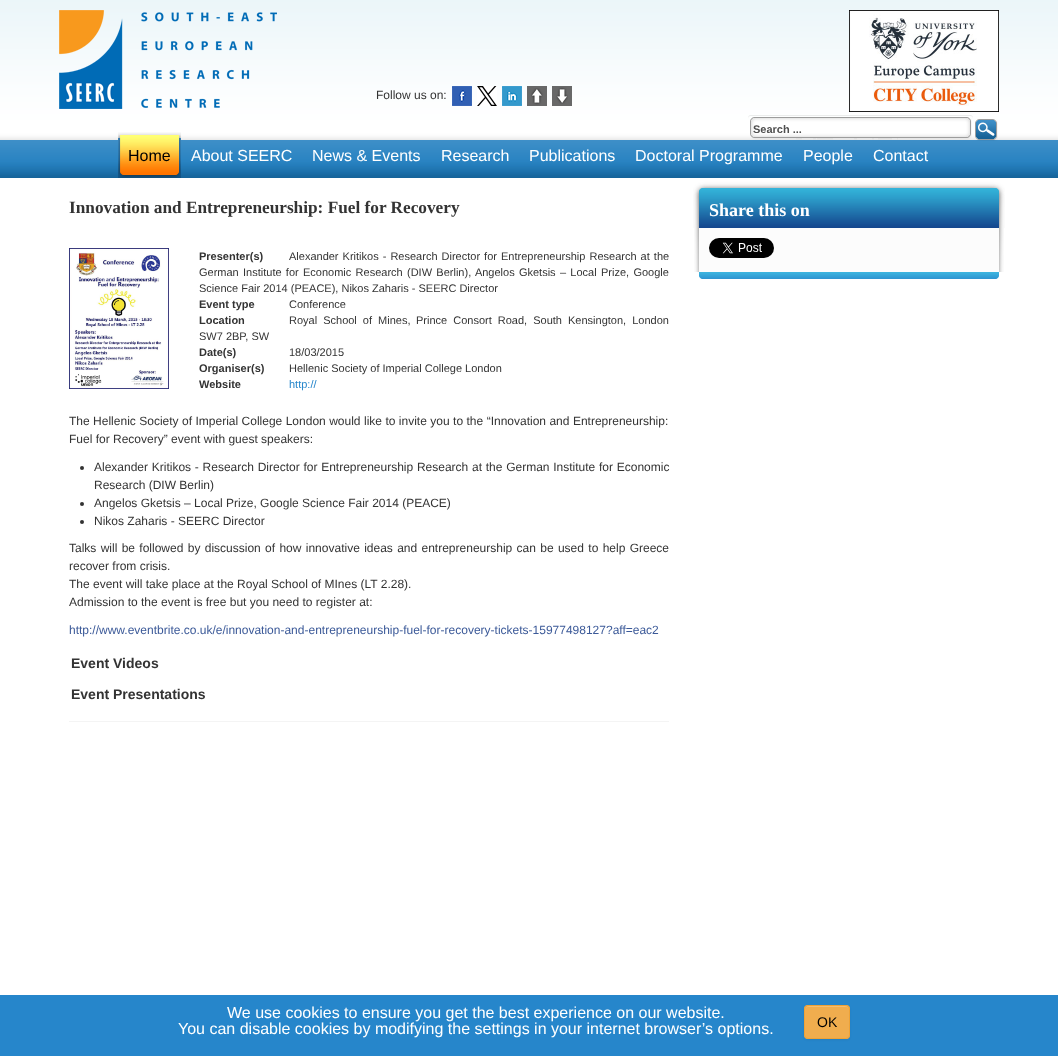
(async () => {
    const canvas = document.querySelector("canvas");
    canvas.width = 1058;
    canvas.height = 1056;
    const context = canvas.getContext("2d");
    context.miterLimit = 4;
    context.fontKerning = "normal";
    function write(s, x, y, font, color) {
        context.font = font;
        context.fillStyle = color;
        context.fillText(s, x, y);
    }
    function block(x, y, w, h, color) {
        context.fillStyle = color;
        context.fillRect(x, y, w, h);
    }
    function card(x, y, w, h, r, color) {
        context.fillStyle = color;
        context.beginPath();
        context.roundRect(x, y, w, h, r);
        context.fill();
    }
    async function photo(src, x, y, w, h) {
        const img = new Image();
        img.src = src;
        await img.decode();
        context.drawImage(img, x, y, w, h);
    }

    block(0, 0, 1058, 1056, "rgb(255, 255, 255)");
    await photo("media/1.png", 0, 0, 1058, 178);
    await photo("media/2.png", 59, 10, 218, 99);
    write("Follow us on:", 376, 99, "12px Liberation Sans", "rgb(51, 51, 51)");
    await photo("media/3.png", 452, 86, 20, 20);
    await photo("media/4.png", 477, 86, 20, 20);
    await photo("media/5.png", 502, 86, 20, 20);
    block(527, 86, 20, 20, "rgb(104, 104, 104)");
    await photo("media/6.png", 531, 88, 12, 17);
    block(552, 86, 20, 20, "rgb(104, 104, 104)");
    await photo("media/7.png", 556, 87, 12, 17);
    await photo("media/8.png", 849, 10, 150, 102);
    await photo("media/9.png", 750, 117, 222, 23);
    context.fillStyle = "rgb(235, 236, 236)";
    context.beginPath();
    context.moveTo(751, 116);
    context.lineTo(970, 116);
    context.bezierCurveTo(972, 116, 973, 117, 973, 119);
    context.lineTo(973, 118);
    context.bezierCurveTo(973, 116, 972, 115, 970, 115);
    context.lineTo(751, 115);
    context.bezierCurveTo(749, 115, 748, 116, 748, 118);
    context.lineTo(748, 119);
    context.bezierCurveTo(748, 117, 749, 116, 751, 116);
    context.closePath();
    context.fill();
    write("Search ...", 753, 133, "bold 11px Liberation Sans", "rgb(79, 79, 79)");
    await photo("media/10.png", 975, 119, 23, 22);
    await photo("media/11.png", 118, 132, 63, 46);
    await photo("media/12.png", 175, 134, 6, 44);
    write("Home", 128, 161, "16px Liberation Sans", "rgb(0, 0, 0)");
    write("About SEERC", 191, 161, "16px Liberation Sans", "rgb(255, 255, 255)");
    write("News & Events", 312, 161, "16px Liberation Sans", "rgb(255, 255, 255)");
    write("Research", 441, 161, "16px Liberation Sans", "rgb(255, 255, 255)");
    write("Publications", 529, 161, "16px Liberation Sans", "rgb(255, 255, 255)");
    write("Doctoral Programme", 635, 161, "16px Liberation Sans", "rgb(255, 255, 255)");
    write("People", 803, 161, "16px Liberation Sans", "rgb(255, 255, 255)");
    write("Contact", 873, 161, "16px Liberation Sans", "rgb(255, 255, 255)");
    write("Innovation and Entrepreneurship: Fuel for Recovery", 69, 213, "bold 17.25px Liberation Serif", "rgb(51, 51, 51)");
    block(69, 721, 600, 1, "rgb(244, 244, 244)");
    await photo("media/13.png", 69, 248, 100, 141);
    write("Presenter(s)", 199, 260, "bold 11px Liberation Sans", "rgb(51, 51, 51)");
    context.wordSpacing = "1px";
    write("Alexander Kritikos - Research Director for Entrepreneurship Research at the", 289, 260, "11px Liberation Sans", "rgb(51, 51, 51)");
    context.wordSpacing = "1.25px";
    write("German Institute for Economic Research (DIW Berlin), Angelos Gketsis – Local Prize, Google", 199, 276, "11px Liberation Sans", "rgb(51, 51, 51)");
    context.wordSpacing = "0px";
    write("Science Fair 2014 (PEACE), Nikos Zaharis - SEERC Director", 199, 292, "11px Liberation Sans", "rgb(51, 51, 51)");
    write("Event type", 199, 308, "bold 11px Liberation Sans", "rgb(51, 51, 51)");
    write("Conference", 289, 308, "11px Liberation Sans", "rgb(51, 51, 51)");
    write("Location", 199, 324, "bold 11px Liberation Sans", "rgb(51, 51, 51)");
    context.wordSpacing = "3px";
    write("Royal School of Mines,", 289, 324, "11px Liberation Sans", "rgb(51, 51, 51)");
    write("Prince Consort Road, South Kensington, London", 416, 324, "11px Liberation Sans", "rgb(51, 51, 51)");
    context.wordSpacing = "0px";
    write("SW7 2BP, SW", 199, 340, "11px Liberation Sans", "rgb(51, 51, 51)");
    write("Date(s)", 199, 356, "bold 11px Liberation Sans", "rgb(51, 51, 51)");
    write("18/03/2015", 289, 356, "11px Liberation Sans", "rgb(51, 51, 51)");
    write("Organiser(s)", 199, 372, "bold 11px Liberation Sans", "rgb(51, 51, 51)");
    write("Hellenic Society of Imperial College London", 289, 372, "11px Liberation Sans", "rgb(51, 51, 51)");
    write("Website", 199, 388, "bold 11px Liberation Sans", "rgb(51, 51, 51)");
    write("http://", 289, 388, "11px Liberation Sans", "rgb(38, 134, 203)");
    context.wordSpacing = "0.1px";
    write("The Hellenic Society of Imperial College London would like to invite you to the “Innovation and Entrepreneurship:", 69, 425, "12px Liberation Sans", "rgb(51, 51, 51)");
    context.wordSpacing = "0px";
    write("Fuel for Recovery” event with guest speakers:", 69, 443, "12px Liberation Sans", "rgb(51, 51, 51)");
    context.beginPath();
    context.arc(82, 468, 2, 0, Math.PI * 2);
    context.fill();
    context.wordSpacing = "0.4px";
    write("Alexander Kritikos - Research Director for Entrepreneurship Research at the German Institute for Economic", 94, 471, "12px Liberation Sans", "rgb(51, 51, 51)");
    context.wordSpacing = "0px";
    write("Research (DIW Berlin)", 94, 489, "12px Liberation Sans", "rgb(51, 51, 51)");
    context.beginPath();
    context.arc(82, 504, 2, 0, Math.PI * 2);
    context.fill();
    write("Angelos Gketsis – Local Prize, Google Science Fair 2014 (PEACE)", 94, 507, "12px Liberation Sans", "rgb(51, 51, 51)");
    context.beginPath();
    context.arc(82, 522, 2, 0, Math.PI * 2);
    context.fill();
    write("Nikos Zaharis - SEERC Director", 94, 525, "12px Liberation Sans", "rgb(51, 51, 51)");
    context.wordSpacing = "1px";
    write("Talks will be followed by discussion of how innovative ideas and entrepreneurship can be used to help Greece", 69, 552, "12px Liberation Sans", "rgb(51, 51, 51)");
    context.wordSpacing = "0px";
    write("recover from crisis.", 69, 570, "12px Liberation Sans", "rgb(51, 51, 51)");
    write("The event will take place at the Royal School of MInes (LT 2.28).", 69, 588, "12px Liberation Sans", "rgb(51, 51, 51)");
    write("Admission to the event is free but you need to register at:", 69, 606, "12px Liberation Sans", "rgb(51, 51, 51)");
    write("http://www.eventbrite.co.uk/e/innovation-and-entrepreneurship-fuel-for-recovery-tickets-15977498127?aff=eac2", 69, 634, "12px Liberation Sans", "rgb(59, 89, 152)");
    write("Event Videos", 71, 668, "bold 14px Liberation Sans", "rgb(51, 51, 51)");
    write("Event Presentations", 71, 699, "bold 14px Liberation Sans", "rgb(51, 51, 51)");
    await photo("media/14.png", 693, 178, 312, 50);
    write("Share this on", 709, 216, "bold 18px Liberation Serif", "rgb(255, 255, 255)");
    await photo("media/15.png", 694, 228, 310, 44);
    await photo("media/16.png", 709, 238, 65, 20);
    await photo("media/17.png", 697, 272, 304, 7);
    block(0, 995, 1058, 61, "rgb(38, 134, 203)");
    write("We use cookies to ensure you get the best experience on our website.", 227, 1018, "16px Liberation Sans", "rgb(255, 255, 255)");
    write("You can disable cookies by modifying the settings in your internet browser’s options.", 178, 1034, "16px Liberation Sans", "rgb(255, 255, 255)");
    context.fillStyle = "rgba(0, 0, 0, 0.05)";
    context.filter = "blur(1px)";
    context.beginPath();
    context.roundRect(804, 1006, 46, 34, 4);
    context.fill();
    context.filter = "none";
    card(804, 1005, 46, 34, 4, "rgb(240, 173, 78)");
    context.fillStyle = "rgb(243, 189, 113)";
    context.beginPath();
    context.moveTo(808, 1007);
    context.lineTo(846, 1007);
    context.bezierCurveTo(848, 1007, 849, 1008, 849, 1010);
    context.bezierCurveTo(849, 1005, 844, 1006, 840, 1006);
    context.lineTo(814, 1006);
    context.bezierCurveTo(810, 1006, 805, 1005, 805, 1010);
    context.bezierCurveTo(805, 1008, 806, 1007, 808, 1007);
    context.closePath();
    context.fill();
    context.beginPath();
    context.roundRect(804.5, 1005.5, 45, 33, 3.5);
    context.strokeStyle = "rgb(238, 162, 54)";
    context.stroke();
    write("OK", 817, 1027, "14px Liberation Sans", "rgb(0, 0, 0)");
})();
